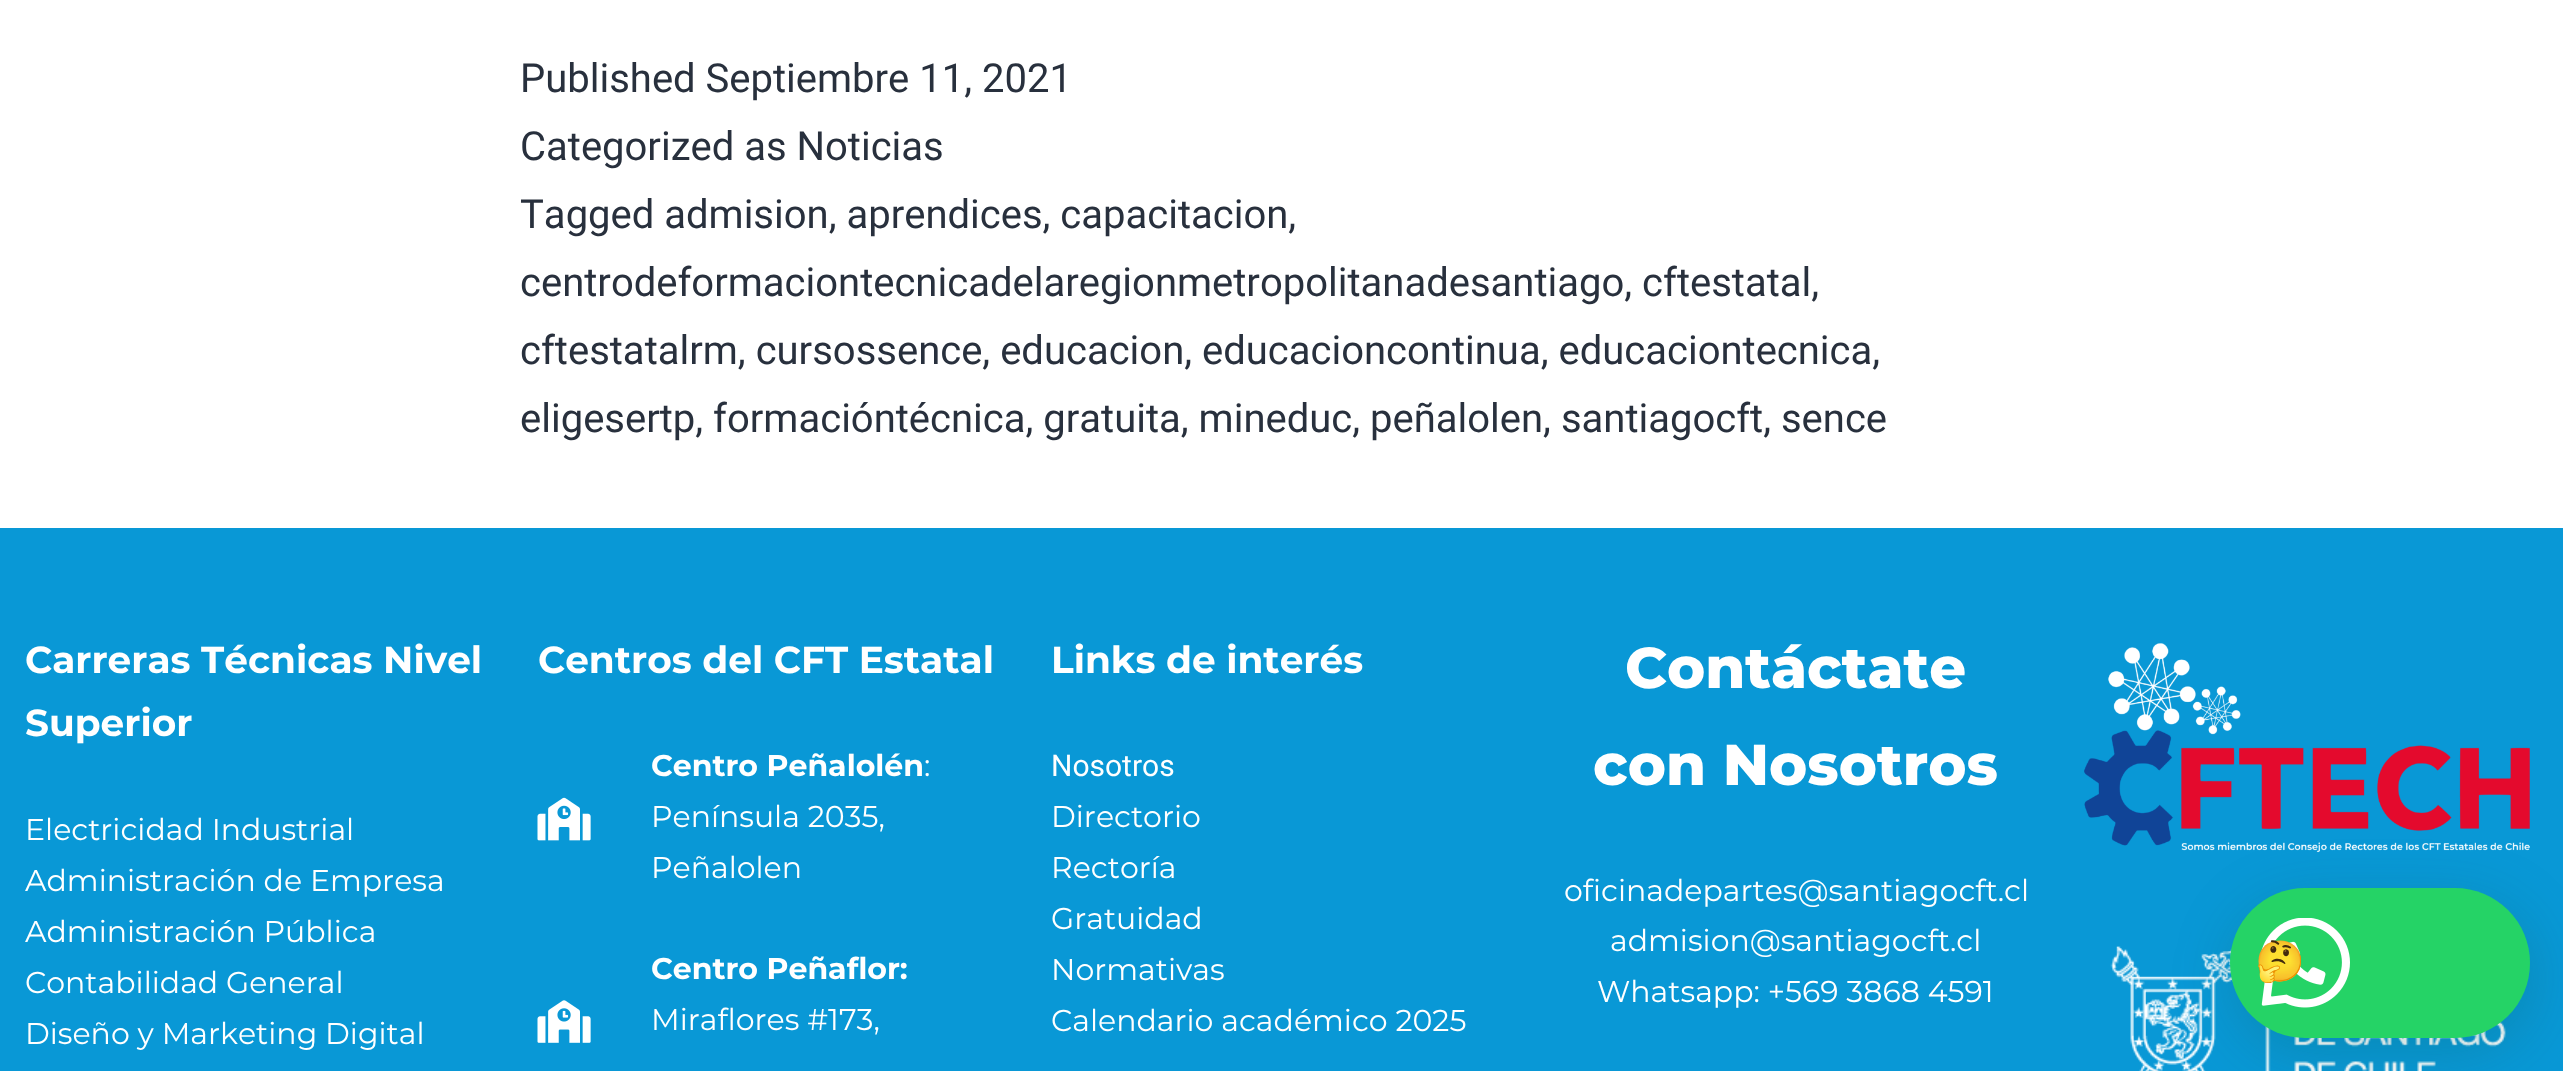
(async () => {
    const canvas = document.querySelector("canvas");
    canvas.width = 2563;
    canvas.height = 1071;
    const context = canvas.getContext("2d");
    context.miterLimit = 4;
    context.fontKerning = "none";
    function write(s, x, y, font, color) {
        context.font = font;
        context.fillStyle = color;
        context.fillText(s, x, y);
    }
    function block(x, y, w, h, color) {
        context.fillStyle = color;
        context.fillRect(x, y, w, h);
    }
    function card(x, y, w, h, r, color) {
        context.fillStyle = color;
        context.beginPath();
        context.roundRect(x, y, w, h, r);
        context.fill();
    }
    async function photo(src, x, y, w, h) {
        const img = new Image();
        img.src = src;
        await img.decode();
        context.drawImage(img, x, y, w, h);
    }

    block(0, 0, 2563, 1071, "rgb(255, 255, 255)");
    write("Published Septiembre 11, 2021", 520, 92, "40px Roboto", "rgb(40, 48, 61)");
    write("Categorized as Noticias", 520, 160, "40px Roboto", "rgb(40, 48, 61)");
    write("Tagged admision, aprendices, capacitacion,", 520, 228, "40px Roboto", "rgb(40, 48, 61)");
    write("centrodeformaciontecnicadelaregionmetropolitanadesantiago, cftestatal,", 520, 296, "40px Roboto", "rgb(40, 48, 61)");
    write("cftestatalrm, cursossence, educacion, educacioncontinua, educaciontecnica,", 520, 364, "40px Roboto", "rgb(40, 48, 61)");
    write("eligesertp, formacióntécnica, gratuita, mineduc, peñalolen, santiagocft, sence", 520, 432, "40px Roboto", "rgb(40, 48, 61)");
    block(0, 528, 2563, 543, "rgb(9, 152, 214)");
    write("Carreras Técnicas Nivel", 25, 673, "bold 37.5px Montserrat", "rgb(255, 255, 255)");
    write("Superior", 25, 736, "bold 37.5px Montserrat", "rgb(255, 255, 255)");
    write("Electricidad Industrial", 25, 840, "30px Montserrat", "rgb(255, 255, 255)");
    write("Administración de Empresa", 25, 891, "30px Montserrat", "rgb(255, 255, 255)");
    write("Administración Pública", 25, 942, "30px Montserrat", "rgb(255, 255, 255)");
    write("Contabilidad General", 25, 993, "30px Montserrat", "rgb(255, 255, 255)");
    write("Diseño y Marketing Digital", 25, 1044, "30px Montserrat", "rgb(255, 255, 255)");
    write("Centros del CFT Estatal", 538, 673, "bold 37.5px Montserrat", "rgb(255, 255, 255)");
    await photo("media/1.png", 537, 797, 54, 44);
    write("Centro Peñalolén", 651, 776, "bold 30px Montserrat", "rgb(255, 255, 255)");
    write(":", 924, 776, "30px Montserrat", "rgb(255, 255, 255)");
    write("Península 2035,", 651, 827, "30px Montserrat", "rgb(255, 255, 255)");
    write("Peñalolen", 651, 878, "30px Montserrat", "rgb(255, 255, 255)");
    await photo("media/2.png", 537, 1000, 54, 43);
    write("Centro Peñaflor:", 651, 979, "bold 30px Montserrat", "rgb(255, 255, 255)");
    write("Miraflores #173,", 651, 1030, "30px Montserrat", "rgb(255, 255, 255)");
    write("Links de interés", 1051, 673, "bold 37.5px Montserrat", "rgb(255, 255, 255)");
    write("Nosotros", 1051, 776, "30px Roboto", "rgb(255, 255, 255)");
    write("Directorio", 1051, 827, "30px Montserrat", "rgb(255, 255, 255)");
    write("Rectoría", 1051, 878, "30px Montserrat", "rgb(255, 255, 255)");
    write("Gratuidad", 1051, 929, "30px Montserrat", "rgb(255, 255, 255)");
    write("Normativas", 1051, 980, "30px Montserrat", "rgb(255, 255, 255)");
    write("Calendario académico 2025", 1051, 1031, "30px Montserrat", "rgb(255, 255, 255)");
    write("Contáctate", 1625, 688, "800 57.5px Montserrat", "rgb(255, 255, 255)");
    write("con Nosotros", 1593, 785, "800 57.5px Montserrat", "rgb(255, 255, 255)");
    write("oficinadepartes@santiagocft.cl", 1564, 901, "30px Montserrat", "rgb(255, 255, 255)");
    write("admision@santiagocft.cl", 1610, 951, "30px Montserrat", "rgb(255, 255, 255)");
    write("Whatsapp: +569 3868 4591", 1597, 1002, "30px Montserrat", "rgb(255, 255, 255)");
    await photo("media/3.png", 2084, 643, 446, 210);
    await photo("media/4.png", 2110, 946, 396, 125);
    context.fillStyle = "rgba(7, 94, 84, 0.24)";
    context.filter = "blur(30px)";
    context.beginPath();
    context.roundRect(2233, 903, 300, 150, 75);
    context.fill();
    context.filter = "none";
    card(2230, 888, 300, 150, 75, "rgb(37, 211, 102)");
    await photo("media/5.png", 2260, 918, 90, 90);
    write("🤔", 2255, 975, "40px Noto Color Emoji", "rgb(114, 227, 156)");
})();
